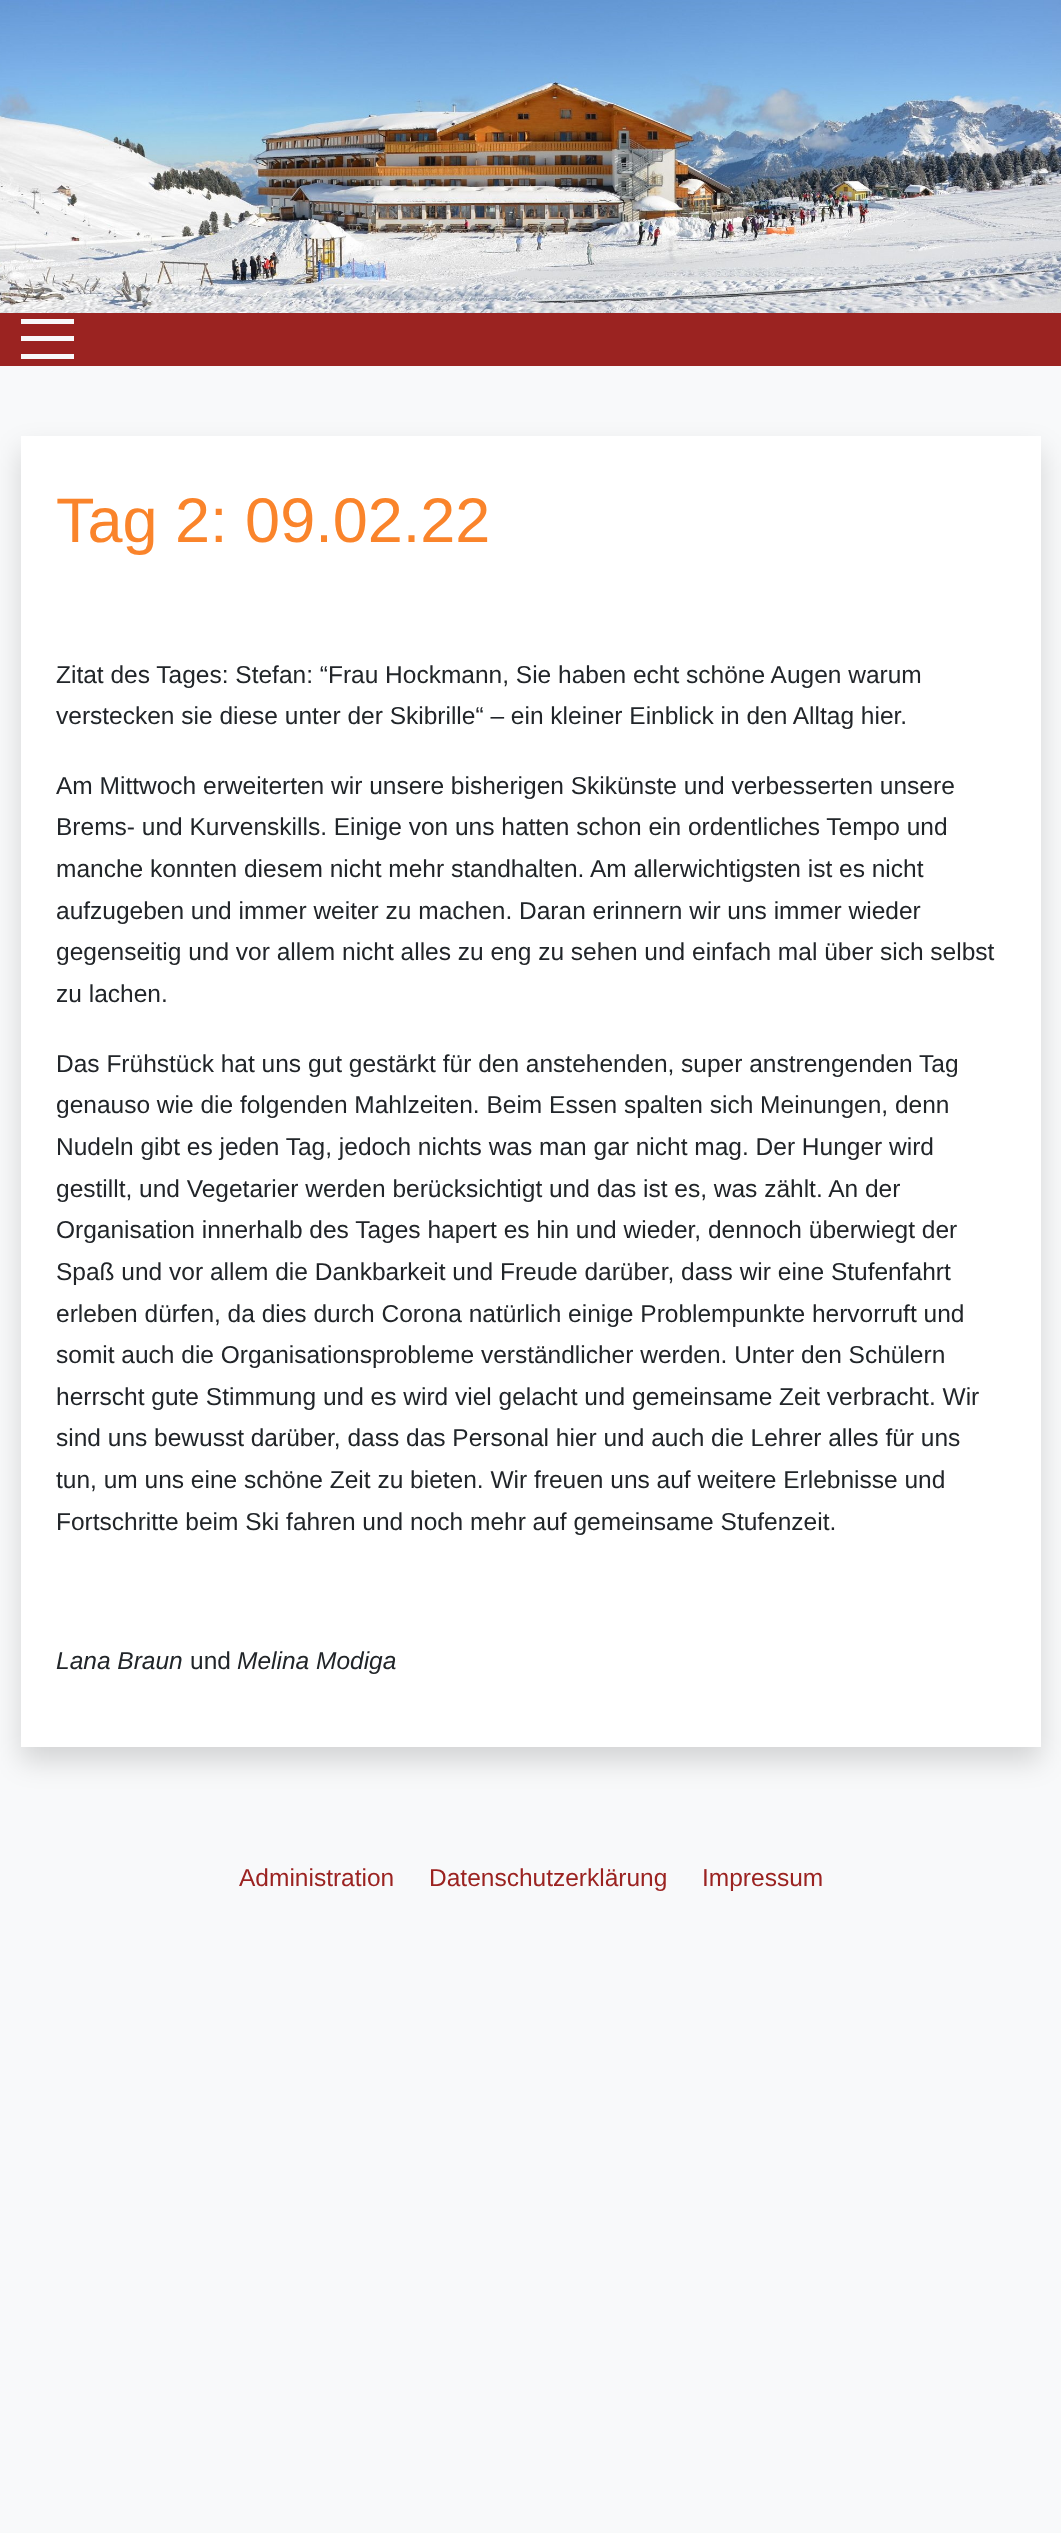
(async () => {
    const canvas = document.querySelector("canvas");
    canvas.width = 1061;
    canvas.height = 2533;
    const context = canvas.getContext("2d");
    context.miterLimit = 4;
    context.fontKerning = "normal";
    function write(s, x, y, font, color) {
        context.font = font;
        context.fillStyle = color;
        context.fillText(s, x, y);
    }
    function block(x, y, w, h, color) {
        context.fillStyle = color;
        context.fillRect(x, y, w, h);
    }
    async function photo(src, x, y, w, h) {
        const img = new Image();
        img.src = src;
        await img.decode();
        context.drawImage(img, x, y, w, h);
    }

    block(0, 0, 1061, 2533, "rgb(248, 249, 250)");
    await photo("media/1.png", 0, 0, 1061, 313);
    block(0, 313, 1061, 53, "rgb(155, 35, 33)");
    block(21, 336, 53, 5, "rgb(248, 249, 250)");
    block(21, 319, 53, 5, "rgb(248, 249, 250)");
    block(21, 354, 53, 5, "rgb(248, 249, 250)");
    context.fillStyle = "rgba(0, 0, 0, 0.15)";
    context.filter = "blur(14px)";
    context.beginPath();
    context.rect(21, 450, 1020, 1311);
    context.fill();
    context.filter = "none";
    block(21, 436, 1020, 1311, "rgb(255, 255, 255)");
    write("Tag 2: 09.02.22", 56, 542, "63px Liberation Sans", "rgb(250, 132, 43)");
    write("Zitat des Tages: Stefan: “Frau Hockmann, Sie haben echt schöne Augen warum", 56, 683, "24.5px Liberation Sans", "rgb(33, 37, 41)");
    write("verstecken sie diese unter der Skibrille“ – ein kleiner Einblick in den Alltag hier.", 56, 724, "24.5px Liberation Sans", "rgb(33, 37, 41)");
    write("Am Mittwoch erweiterten wir unsere bisherigen Skikünste und verbesserten unsere", 56, 794, "24.5px Liberation Sans", "rgb(33, 37, 41)");
    write("Brems- und Kurvenskills. Einige von uns hatten schon ein ordentliches Tempo und", 56, 835, "24.5px Liberation Sans", "rgb(33, 37, 41)");
    write("manche konnten diesem nicht mehr standhalten. Am allerwichtigsten ist es nicht", 56, 877, "24.5px Liberation Sans", "rgb(33, 37, 41)");
    write("aufzugeben und immer weiter zu machen. Daran erinnern wir uns immer wieder", 56, 919, "24.5px Liberation Sans", "rgb(33, 37, 41)");
    write("gegenseitig und vor allem nicht alles zu eng zu sehen und einfach mal über sich selbst", 56, 960, "24.5px Liberation Sans", "rgb(33, 37, 41)");
    write("zu lachen.", 56, 1002, "24.5px Liberation Sans", "rgb(33, 37, 41)");
    write("Das Frühstück hat uns gut gestärkt für den anstehenden, super anstrengenden Tag", 56, 1072, "24.5px Liberation Sans", "rgb(33, 37, 41)");
    write("genauso wie die folgenden Mahlzeiten. Beim Essen spalten sich Meinungen, denn", 56, 1113, "24.5px Liberation Sans", "rgb(33, 37, 41)");
    write("Nudeln gibt es jeden Tag, jedoch nichts was man gar nicht mag. Der Hunger wird", 56, 1155, "24.5px Liberation Sans", "rgb(33, 37, 41)");
    write("gestillt, und Vegetarier werden berücksichtigt und das ist es, was zählt. An der", 56, 1197, "24.5px Liberation Sans", "rgb(33, 37, 41)");
    write("Organisation innerhalb des Tages hapert es hin und wieder, dennoch überwiegt der", 56, 1238, "24.5px Liberation Sans", "rgb(33, 37, 41)");
    write("Spaß und vor allem die Dankbarkeit und Freude darüber, dass wir eine Stufenfahrt", 56, 1280, "24.5px Liberation Sans", "rgb(33, 37, 41)");
    write("erleben dürfen, da dies durch Corona natürlich einige Problempunkte hervorruft und", 56, 1322, "24.5px Liberation Sans", "rgb(33, 37, 41)");
    write("somit auch die Organisationsprobleme verständlicher werden. Unter den Schülern", 56, 1363, "24.5px Liberation Sans", "rgb(33, 37, 41)");
    write("herrscht gute Stimmung und es wird viel gelacht und gemeinsame Zeit verbracht. Wir", 56, 1405, "24.5px Liberation Sans", "rgb(33, 37, 41)");
    write("sind uns bewusst darüber, dass das Personal hier und auch die Lehrer alles für uns", 56, 1446, "24.5px Liberation Sans", "rgb(33, 37, 41)");
    write("tun, um uns eine schöne Zeit zu bieten. Wir freuen uns auf weitere Erlebnisse und", 56, 1488, "24.5px Liberation Sans", "rgb(33, 37, 41)");
    write("Fortschritte beim Ski fahren und noch mehr auf gemeinsame Stufenzeit.", 56, 1530, "24.5px Liberation Sans", "rgb(33, 37, 41)");
    write("Lana Braun", 56, 1669, "italic 24.5px Liberation Sans", "rgb(33, 37, 41)");
    write("und", 190, 1669, "24.5px Liberation Sans", "rgb(33, 37, 41)");
    write("Melina Modiga", 237, 1669, "italic 24.5px Liberation Sans", "rgb(33, 37, 41)");
    write("Administration", 239, 1886, "24.5px Liberation Sans", "rgb(155, 35, 33)");
    write("Datenschutzerklärung", 429, 1886, "24.5px Liberation Sans", "rgb(155, 35, 33)");
    write("Impressum", 702, 1886, "24.5px Liberation Sans", "rgb(155, 35, 33)");
})();
